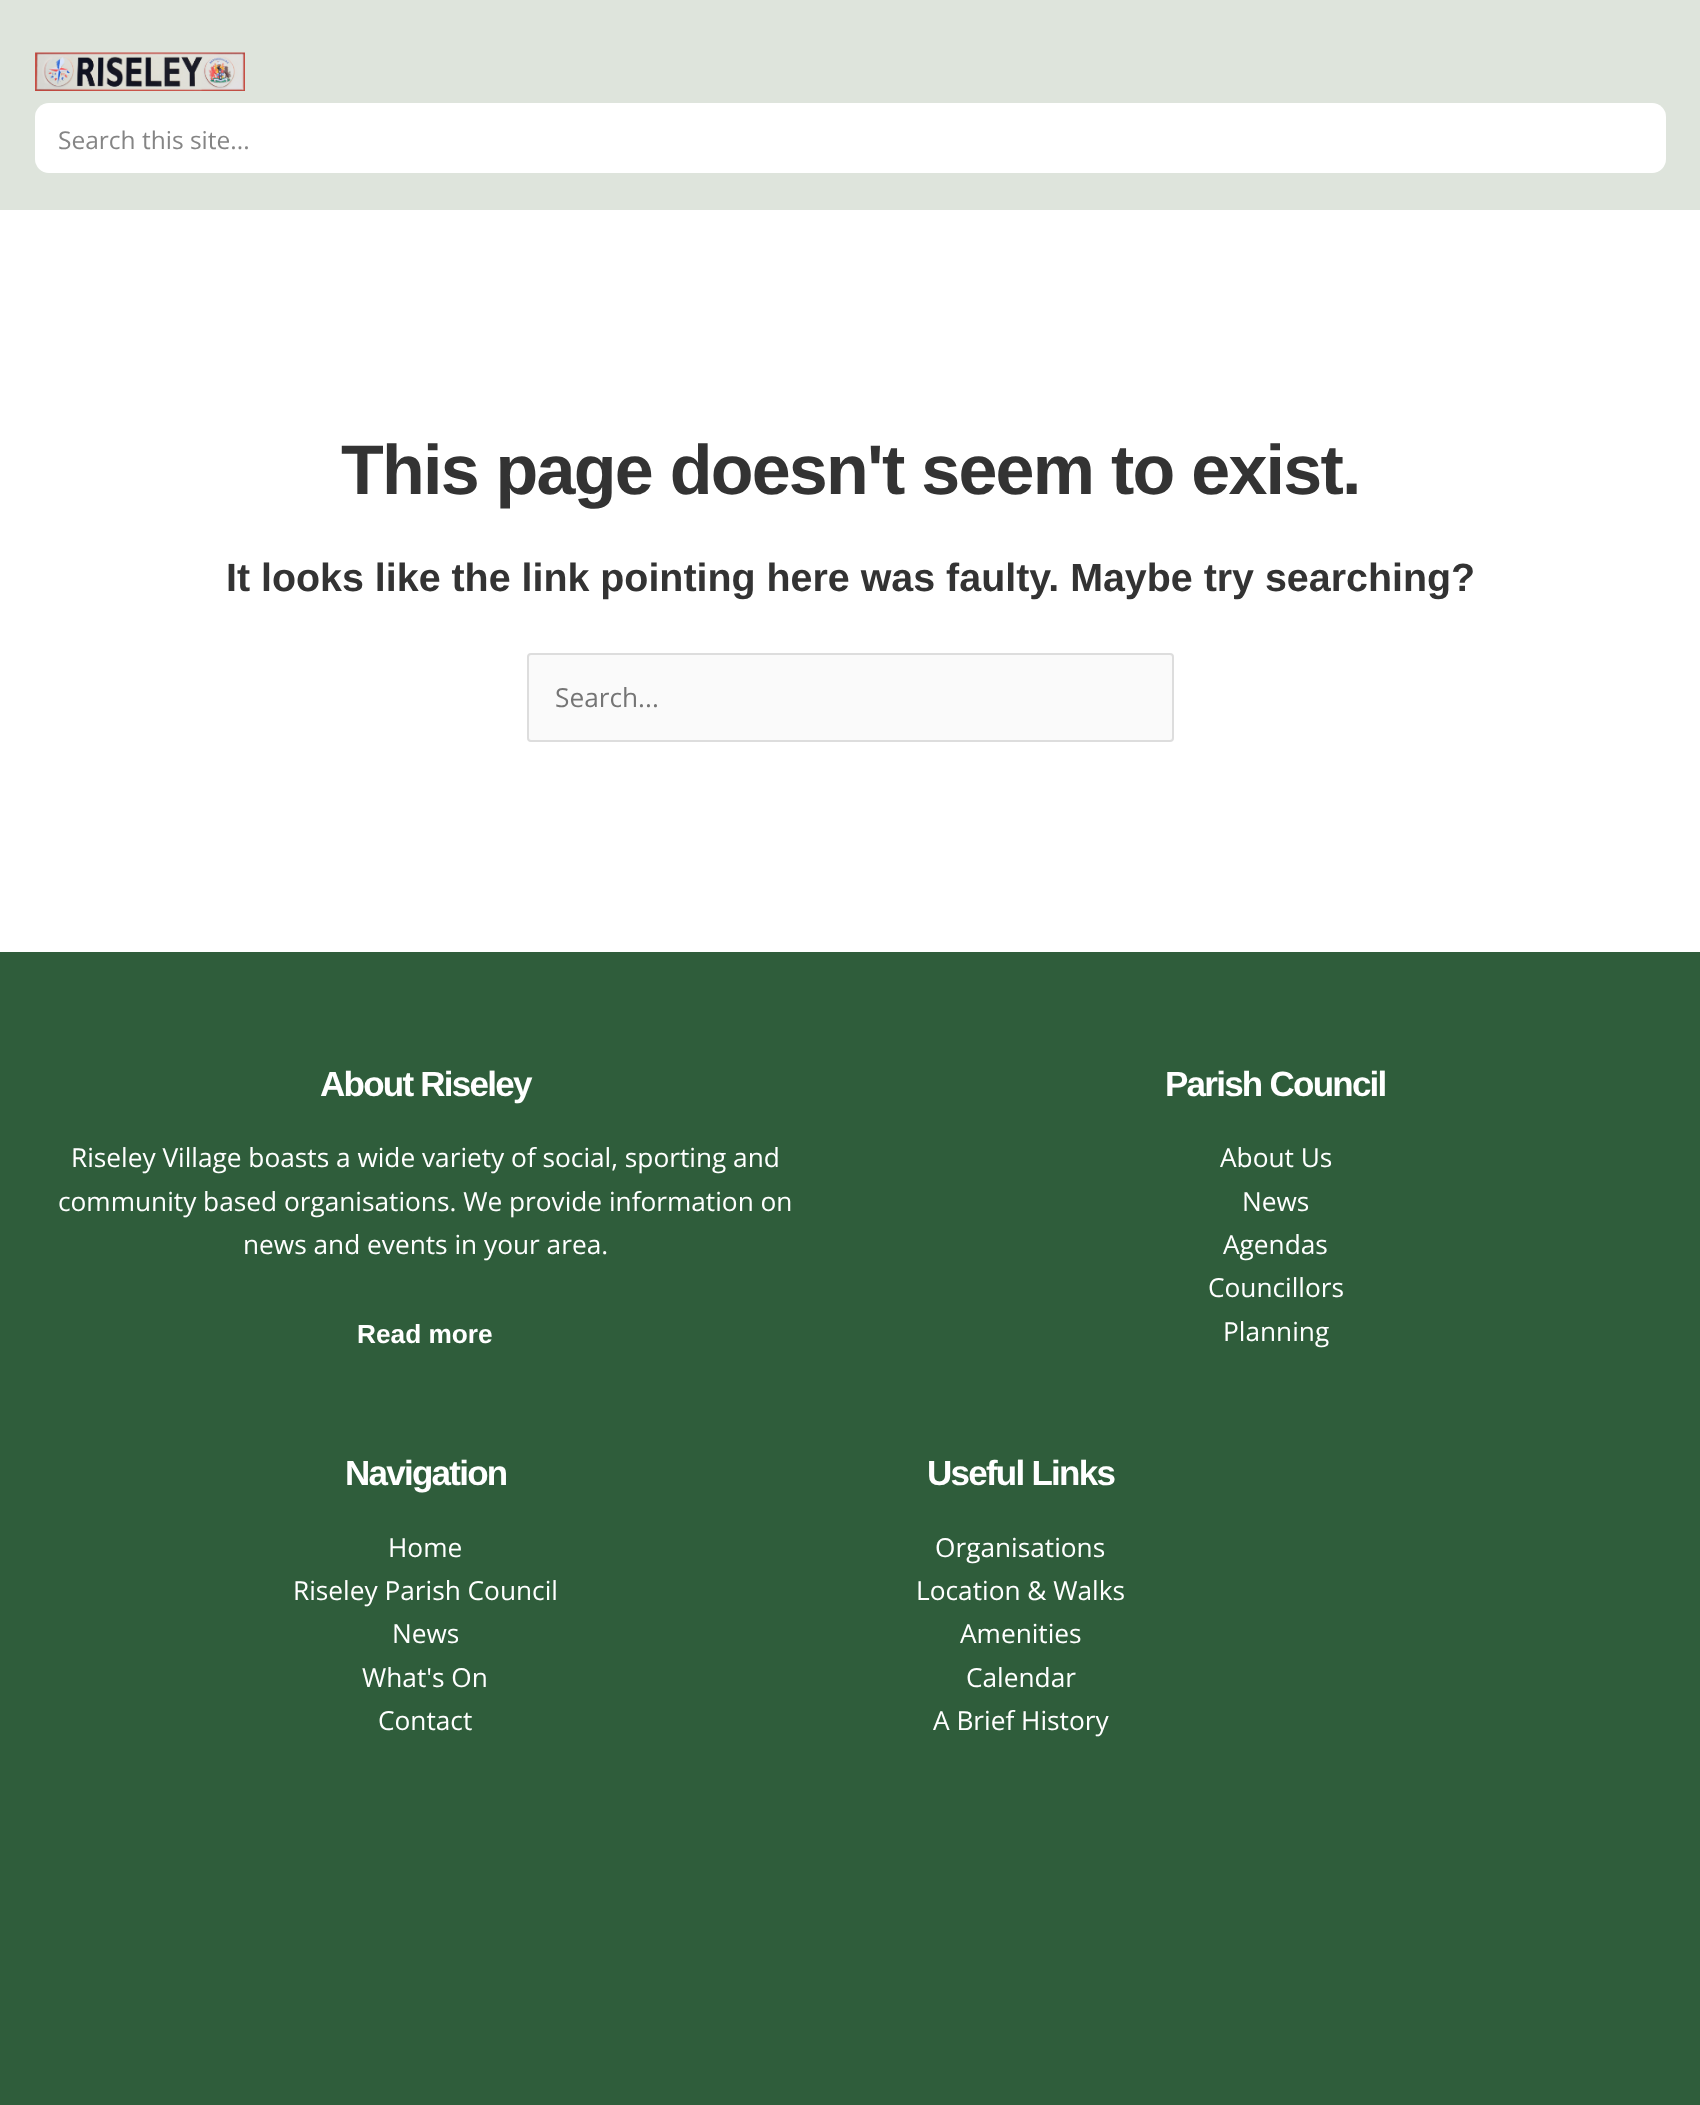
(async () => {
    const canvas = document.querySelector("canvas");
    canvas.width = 1700;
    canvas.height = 2105;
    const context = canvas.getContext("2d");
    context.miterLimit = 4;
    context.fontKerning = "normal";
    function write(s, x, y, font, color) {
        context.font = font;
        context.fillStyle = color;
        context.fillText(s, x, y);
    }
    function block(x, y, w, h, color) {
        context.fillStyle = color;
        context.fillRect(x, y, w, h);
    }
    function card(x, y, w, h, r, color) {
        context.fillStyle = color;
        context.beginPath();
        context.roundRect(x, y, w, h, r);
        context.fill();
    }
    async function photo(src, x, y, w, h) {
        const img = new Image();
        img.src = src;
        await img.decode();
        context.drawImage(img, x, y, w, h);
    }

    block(0, 0, 1700, 2105, "rgb(255, 255, 255)");
    block(0, 0, 1700, 210, "rgb(222, 228, 220)");
    await photo("media/1.png", 35, 52, 210, 39);
    card(35, 103, 1631, 70, 14, "rgb(255, 255, 255)");
    write("Search this site...", 58, 149, "24.5px Open Sans", "rgb(133, 133, 133)");
    context.letterSpacing = "-1.75px";
    write("This page doesn't seem to exist.", 341, 494, "bold 70px Liberation Sans", "rgb(51, 51, 51)");
    context.letterSpacing = "0px";
    write("It looks like the link pointing here was faulty. Maybe try searching?", 226, 591, "bold 39.4px Liberation Sans", "rgb(51, 51, 51)");
    context.fillStyle = "rgb(250, 250, 250)";
    context.beginPath();
    context.roundRect(528, 654, 645, 87, 3);
    context.fill();
    context.strokeStyle = "rgb(221, 221, 221)";
    context.lineWidth = 2;
    context.stroke();
    write("Search...", 555, 707, "26.25px Open Sans", "rgb(117, 117, 117)");
    block(0, 952, 1700, 1153, "rgb(47, 93, 59)");
    context.letterSpacing = "-1.75px";
    write("About Riseley", 320, 1096, "bold 35px Liberation Sans", "rgb(255, 255, 255)");
    context.letterSpacing = "0px";
    write("Riseley Village boasts a wide variety of social, sporting and", 71, 1167, "26.25px Open Sans", "rgb(255, 255, 255)");
    write("community based organisations. We provide information on", 58, 1211, "26.25px Open Sans", "rgb(255, 255, 255)");
    write("news and events in your area.", 243, 1254, "26.25px Open Sans", "rgb(255, 255, 255)");
    write("Read more", 357, 1343, "bold 26.25px Liberation Sans", "rgb(255, 255, 255)");
    context.letterSpacing = "-1.75px";
    write("Parish Council", 1165, 1096, "bold 35px Liberation Sans", "rgb(255, 255, 255)");
    context.letterSpacing = "0px";
    write("About Us", 1220, 1167, "26.25px Open Sans", "rgb(255, 255, 255)");
    write("News", 1242, 1211, "26.25px Open Sans", "rgb(255, 255, 255)");
    write("Agendas", 1223, 1254, "26.25px Open Sans", "rgb(255, 255, 255)");
    write("Councillors", 1208, 1297, "26.25px Open Sans", "rgb(255, 255, 255)");
    write("Planning", 1223, 1341, "26.25px Open Sans", "rgb(255, 255, 255)");
    context.letterSpacing = "-1.75px";
    write("Navigation", 345, 1485, "bold 35px Liberation Sans", "rgb(255, 255, 255)");
    context.letterSpacing = "0px";
    write("Home", 388, 1557, "26.25px Open Sans", "rgb(255, 255, 255)");
    write("Riseley Parish Council", 293, 1600, "26.25px Open Sans", "rgb(255, 255, 255)");
    write("News", 392, 1643, "26.25px Open Sans", "rgb(255, 255, 255)");
    write("What's On", 362, 1687, "26.25px Open Sans", "rgb(255, 255, 255)");
    write("Contact", 378, 1730, "26.25px Open Sans", "rgb(255, 255, 255)");
    context.letterSpacing = "-1.75px";
    write("Useful Links", 927, 1485, "bold 35px Liberation Sans", "rgb(255, 255, 255)");
    context.letterSpacing = "0px";
    write("Organisations", 935, 1557, "26.25px Open Sans", "rgb(255, 255, 255)");
    write("Location & Walks", 916, 1600, "26.25px Open Sans", "rgb(255, 255, 255)");
    write("Amenities", 960, 1643, "26.25px Open Sans", "rgb(255, 255, 255)");
    write("Calendar", 966, 1687, "26.25px Open Sans", "rgb(255, 255, 255)");
    write("A Brief History", 933, 1730, "26.25px Open Sans", "rgb(255, 255, 255)");
})();
